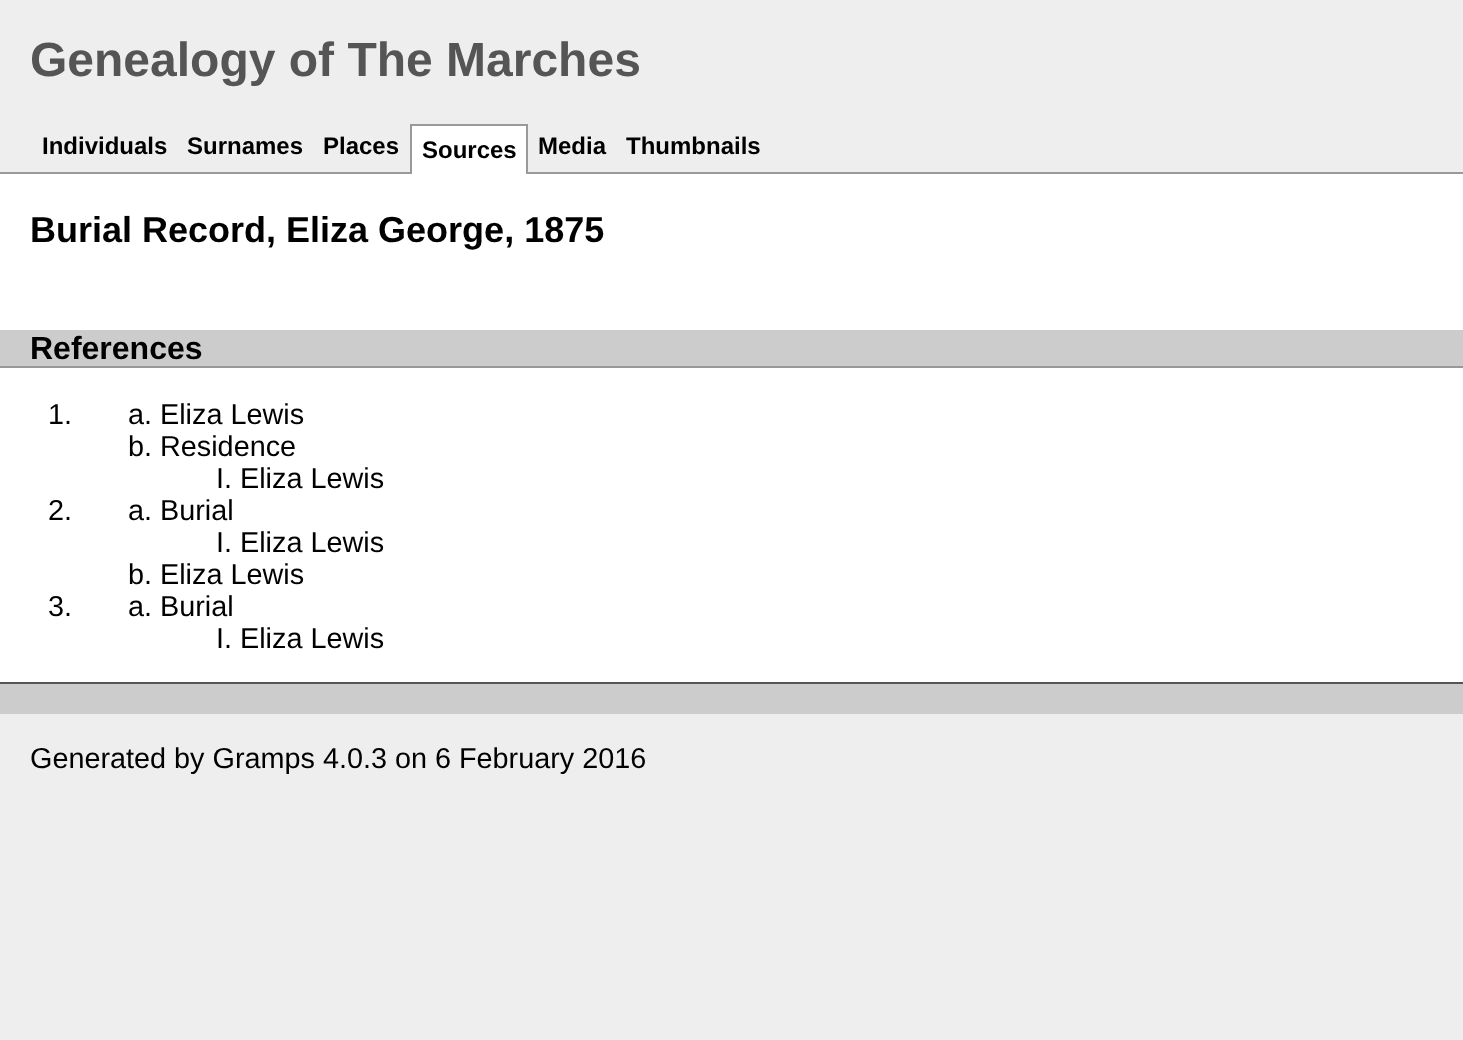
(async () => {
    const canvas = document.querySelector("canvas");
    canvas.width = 1463;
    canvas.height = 1040;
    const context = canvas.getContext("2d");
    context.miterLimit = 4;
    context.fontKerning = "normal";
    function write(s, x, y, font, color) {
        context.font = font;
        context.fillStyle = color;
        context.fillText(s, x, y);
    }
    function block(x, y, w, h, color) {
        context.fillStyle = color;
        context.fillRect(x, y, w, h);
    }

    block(0, 0, 1463, 1040, "rgb(238, 238, 238)");
    write("Genealogy of The Marches", 30, 76, "bold 48px Liberation Sans", "rgb(85, 85, 85)");
    write("Individuals", 42, 154, "bold 24px Liberation Sans", "rgb(0, 0, 0)");
    write("Surnames", 187, 154, "bold 24px Liberation Sans", "rgb(0, 0, 0)");
    write("Places", 323, 154, "bold 24px Liberation Sans", "rgb(0, 0, 0)");
    block(0, 172, 1463, 2, "rgb(153, 153, 153)");
    block(412, 126, 114, 48, "rgb(255, 255, 255)");
    block(410, 124, 118, 2, "rgb(153, 153, 153)");
    block(526, 124, 2, 50, "rgb(153, 153, 153)");
    block(410, 124, 2, 50, "rgb(153, 153, 153)");
    write("Sources", 422, 158, "bold 24px Liberation Sans", "rgb(0, 0, 0)");
    write("Media", 538, 154, "bold 24px Liberation Sans", "rgb(0, 0, 0)");
    write("Thumbnails", 626, 154, "bold 24px Liberation Sans", "rgb(0, 0, 0)");
    block(0, 174, 1463, 508, "rgb(255, 255, 255)");
    write("Burial Record, Eliza George, 1875", 30, 242, "bold 36px Liberation Sans", "rgb(0, 0, 0)");
    block(0, 330, 1463, 36, "rgb(204, 204, 204)");
    block(0, 366, 1463, 2, "rgb(153, 153, 153)");
    write("References", 30, 359, "bold 32px Liberation Sans", "rgb(0, 0, 0)");
    write("1.", 48, 424, "28.8px Liberation Sans", "rgb(0, 0, 0)");
    write("a. Eliza Lewis", 128, 424, "28.8px Liberation Sans", "rgb(0, 0, 0)");
    write("b. Residence", 128, 456, "28.8px Liberation Sans", "rgb(0, 0, 0)");
    write("I. Eliza Lewis", 216, 488, "28.8px Liberation Sans", "rgb(0, 0, 0)");
    write("2.", 48, 520, "28.8px Liberation Sans", "rgb(0, 0, 0)");
    write("a. Burial", 128, 520, "28.8px Liberation Sans", "rgb(0, 0, 0)");
    write("I. Eliza Lewis", 216, 552, "28.8px Liberation Sans", "rgb(0, 0, 0)");
    write("b. Eliza Lewis", 128, 584, "28.8px Liberation Sans", "rgb(0, 0, 0)");
    write("3.", 48, 616, "28.8px Liberation Sans", "rgb(0, 0, 0)");
    write("a. Burial", 128, 616, "28.8px Liberation Sans", "rgb(0, 0, 0)");
    write("I. Eliza Lewis", 216, 648, "28.8px Liberation Sans", "rgb(0, 0, 0)");
    block(0, 684, 1463, 30, "rgb(204, 204, 204)");
    block(0, 682, 1463, 2, "rgb(85, 85, 85)");
    write("Generated by Gramps 4.0.3 on 6 February 2016", 30, 768, "28.8px Liberation Sans", "rgb(0, 0, 0)");
})();
